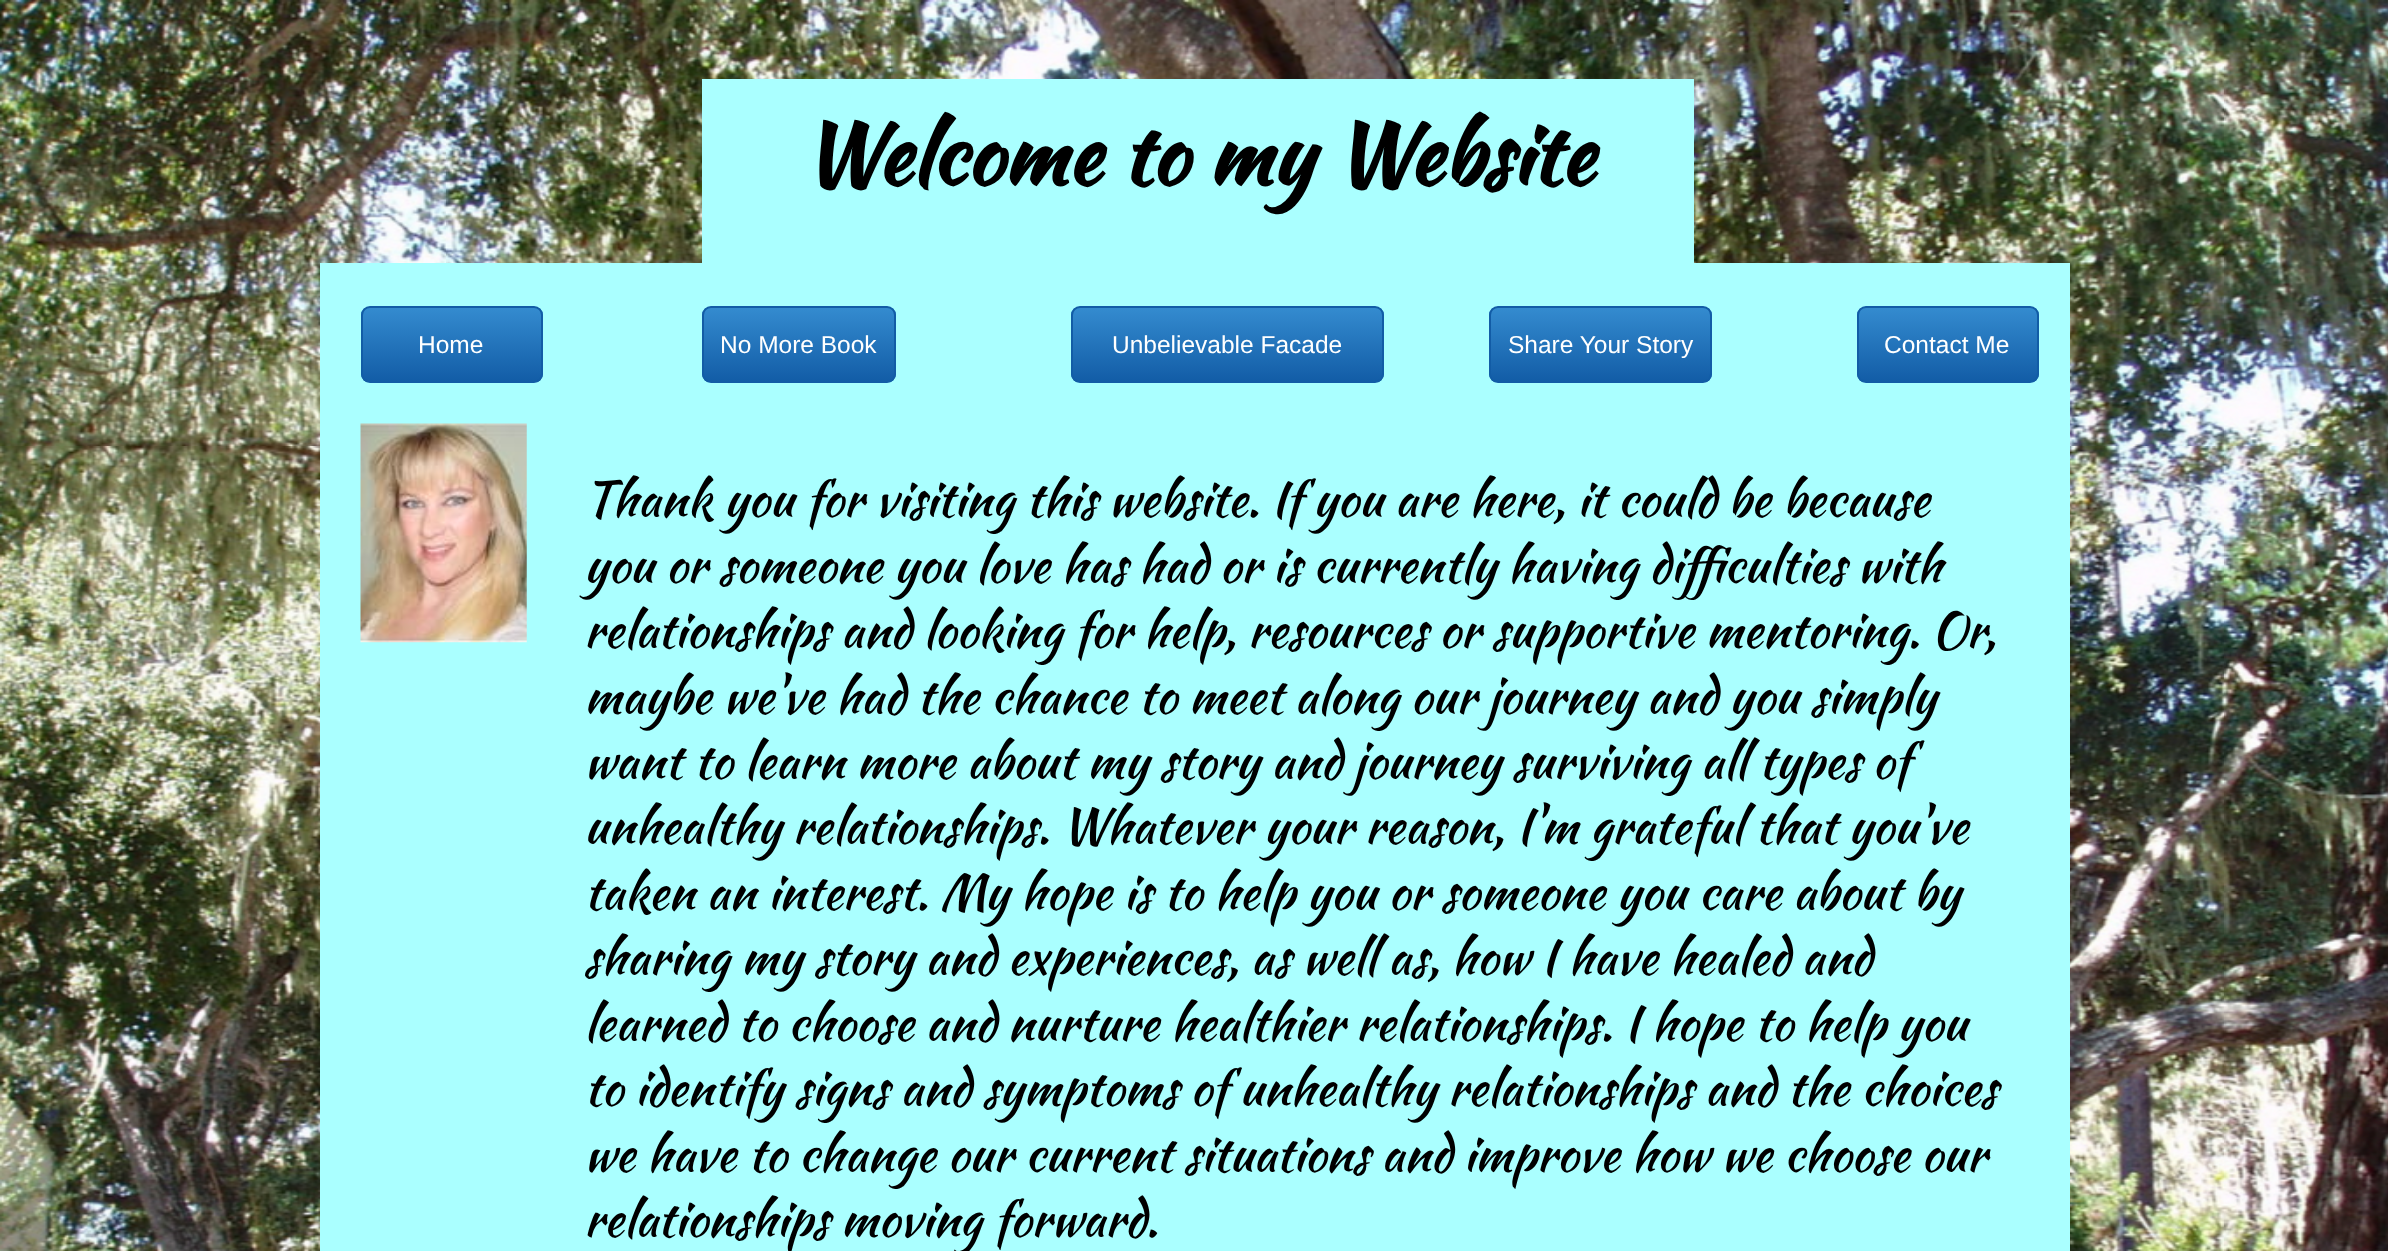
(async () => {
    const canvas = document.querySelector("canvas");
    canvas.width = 2388;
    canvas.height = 1251;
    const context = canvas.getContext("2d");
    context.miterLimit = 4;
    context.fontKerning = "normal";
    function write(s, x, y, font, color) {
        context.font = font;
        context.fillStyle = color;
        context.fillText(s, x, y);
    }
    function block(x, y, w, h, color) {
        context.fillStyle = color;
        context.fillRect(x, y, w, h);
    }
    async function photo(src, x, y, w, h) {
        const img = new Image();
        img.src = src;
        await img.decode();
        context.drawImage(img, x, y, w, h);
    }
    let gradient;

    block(0, 0, 2388, 1251, "rgb(255, 255, 255)");
    await photo("media/1.png", 0, 0, 2388, 1251);
    block(320, 263, 1750, 988, "rgb(170, 255, 255)");
    block(702, 79, 992, 184, "rgb(170, 255, 255)");
    write("Welcome to my Website", 801, 184, "bold 84px Kaushan Script", "rgb(0, 0, 0)");
    context.save();
    context.beginPath();
    context.roundRect(361, 306, 182, 77, 9);
    context.clip();
    gradient = context.createLinearGradient(452, 308, 452, 382);
    gradient.addColorStop(0, "rgb(52, 139, 207)");
    gradient.addColorStop(1, "rgb(18, 92, 166)");
    context.fillStyle = gradient;
    context.fillRect(361, 308, 182, 74);
    context.restore();
    context.beginPath();
    context.roundRect(362, 307, 180, 75, 8);
    context.strokeStyle = "rgb(18, 92, 166)";
    context.lineWidth = 2;
    context.stroke();
    write("Home", 418, 353, "24.5px Liberation Sans", "rgb(255, 255, 255)");
    context.save();
    context.beginPath();
    context.roundRect(702, 306, 194, 77, 9);
    context.clip();
    gradient = context.createLinearGradient(799, 308, 799, 382);
    gradient.addColorStop(0, "rgb(52, 139, 207)");
    gradient.addColorStop(1, "rgb(18, 92, 166)");
    context.fillStyle = gradient;
    context.fillRect(702, 308, 194, 74);
    context.restore();
    context.beginPath();
    context.roundRect(703, 307, 192, 75, 8);
    context.stroke();
    write("No More Book", 720, 353, "24.5px Liberation Sans", "rgb(255, 255, 255)");
    context.save();
    context.beginPath();
    context.roundRect(1071, 306, 313, 77, 9);
    context.clip();
    gradient = context.createLinearGradient(1228, 308, 1228, 382);
    gradient.addColorStop(0, "rgb(52, 139, 207)");
    gradient.addColorStop(1, "rgb(18, 92, 166)");
    context.fillStyle = gradient;
    context.fillRect(1071, 308, 313, 74);
    context.restore();
    context.beginPath();
    context.roundRect(1072, 307, 311, 75, 8);
    context.stroke();
    write("Unbelievable Facade", 1112, 353, "24.5px Liberation Sans", "rgb(255, 255, 255)");
    context.save();
    context.beginPath();
    context.roundRect(1489, 306, 223, 77, 9);
    context.clip();
    gradient = context.createLinearGradient(1600, 308, 1600, 382);
    gradient.addColorStop(0, "rgb(52, 139, 207)");
    gradient.addColorStop(1, "rgb(18, 92, 166)");
    context.fillStyle = gradient;
    context.fillRect(1489, 308, 223, 74);
    context.restore();
    context.beginPath();
    context.roundRect(1490, 307, 221, 75, 8);
    context.stroke();
    write("Share Your Story", 1508, 353, "24.5px Liberation Sans", "rgb(255, 255, 255)");
    context.save();
    context.beginPath();
    context.roundRect(1857, 306, 182, 77, 9);
    context.clip();
    gradient = context.createLinearGradient(1948, 308, 1948, 382);
    gradient.addColorStop(0, "rgb(52, 139, 207)");
    gradient.addColorStop(1, "rgb(18, 92, 166)");
    context.fillStyle = gradient;
    context.fillRect(1857, 308, 182, 74);
    context.restore();
    context.beginPath();
    context.roundRect(1858, 307, 180, 75, 8);
    context.stroke();
    write("Contact Me", 1884, 353, "24.5px Liberation Sans", "rgb(255, 255, 255)");
    await photo("media/2.png", 360, 423, 167, 220);
    write("Thank you for visiting this website. If you are here, it could be because", 584, 516, "49px Kaushan Script", "rgb(0, 0, 0)");
    write("you or someone you love has had or is currently having difficulties with", 584, 582, "49px Kaushan Script", "rgb(0, 0, 0)");
    write("relationships and looking for help, resources or supportive mentoring. Or,", 584, 647, "49px Kaushan Script", "rgb(0, 0, 0)");
    write("maybe we've had the chance to meet along our journey and you simply", 584, 713, "49px Kaushan Script", "rgb(0, 0, 0)");
    write("want to learn more about my story and journey surviving all types of", 584, 778, "49px Kaushan Script", "rgb(0, 0, 0)");
    write("unhealthy relationships. Whatever your reason, I'm grateful that you've", 584, 843, "49px Kaushan Script", "rgb(0, 0, 0)");
    write("taken an interest. My hope is to help you or someone you care about by", 584, 909, "49px Kaushan Script", "rgb(0, 0, 0)");
    write("sharing my story and experiences, as well as, how I have healed and", 584, 974, "49px Kaushan Script", "rgb(0, 0, 0)");
    write("learned to choose and nurture healthier relationships. I hope to help you", 584, 1040, "49px Kaushan Script", "rgb(0, 0, 0)");
    write("to identify signs and symptoms of unhealthy relationships and the choices", 584, 1105, "49px Kaushan Script", "rgb(0, 0, 0)");
    write("we have to change our current situations and improve how we choose our", 584, 1171, "49px Kaushan Script", "rgb(0, 0, 0)");
    write("relationships moving forward.", 584, 1236, "49px Kaushan Script", "rgb(0, 0, 0)");
})();
